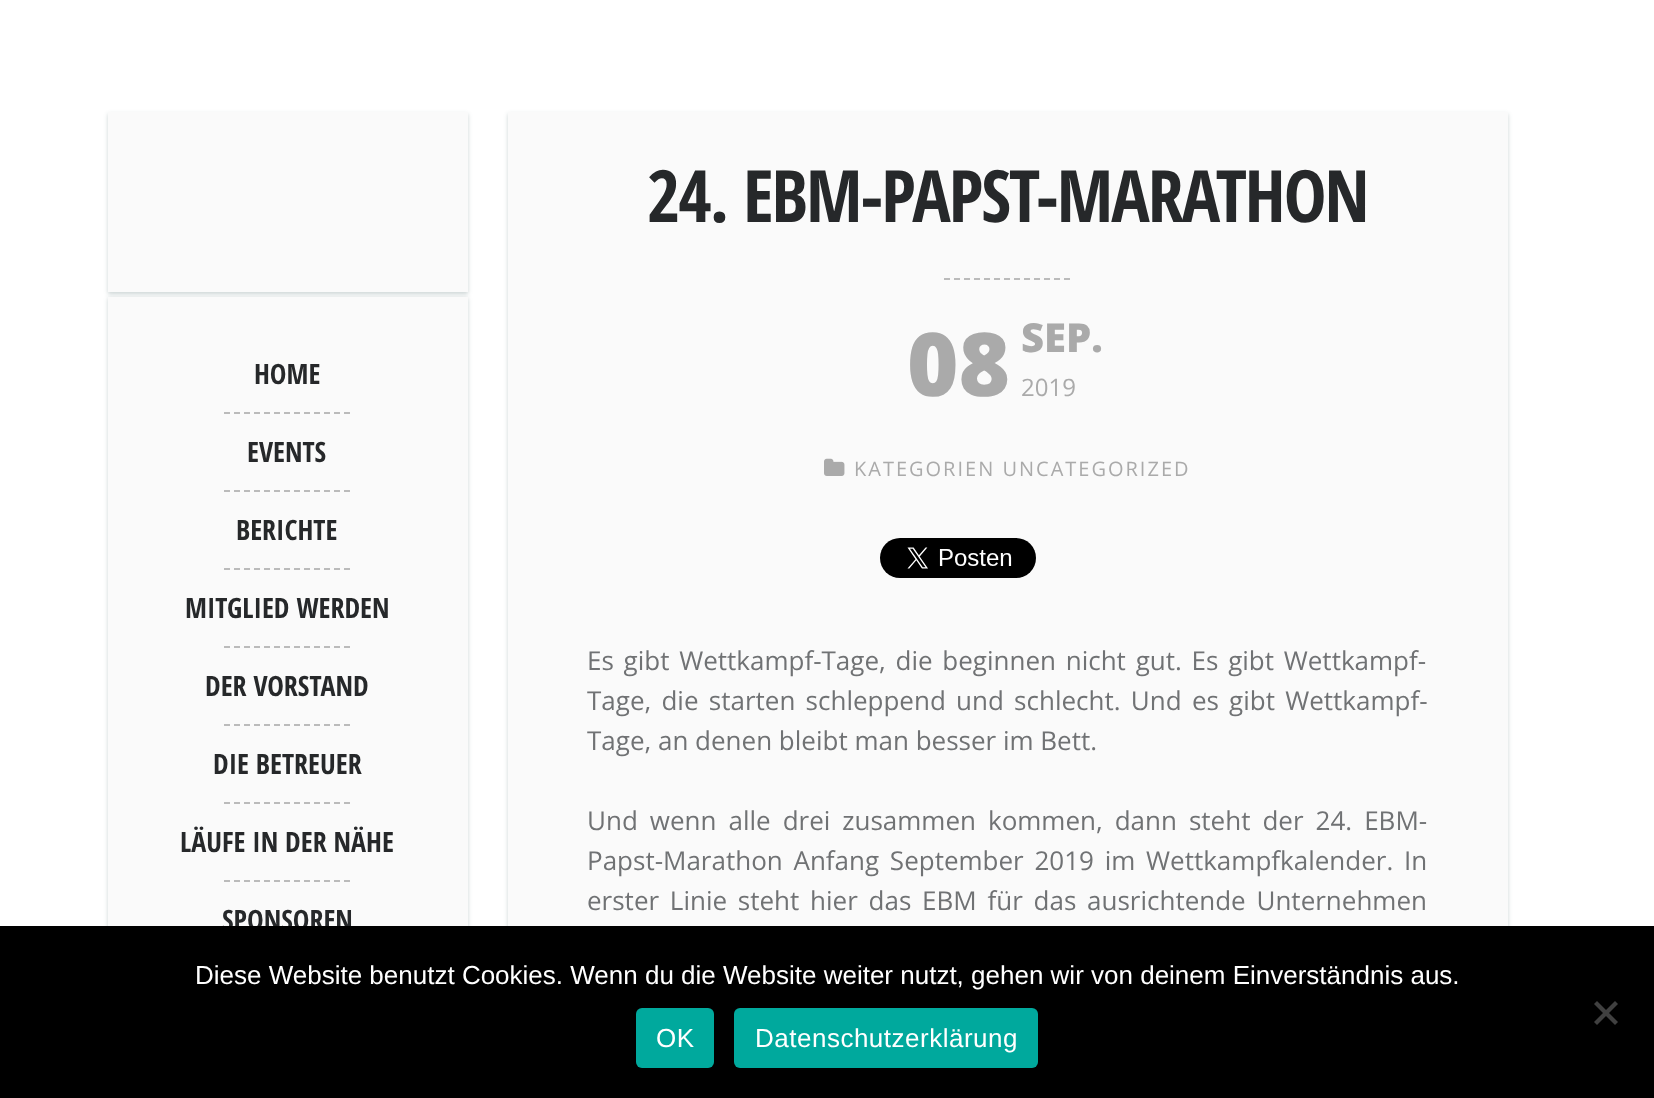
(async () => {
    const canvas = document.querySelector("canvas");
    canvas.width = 1654;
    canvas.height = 1098;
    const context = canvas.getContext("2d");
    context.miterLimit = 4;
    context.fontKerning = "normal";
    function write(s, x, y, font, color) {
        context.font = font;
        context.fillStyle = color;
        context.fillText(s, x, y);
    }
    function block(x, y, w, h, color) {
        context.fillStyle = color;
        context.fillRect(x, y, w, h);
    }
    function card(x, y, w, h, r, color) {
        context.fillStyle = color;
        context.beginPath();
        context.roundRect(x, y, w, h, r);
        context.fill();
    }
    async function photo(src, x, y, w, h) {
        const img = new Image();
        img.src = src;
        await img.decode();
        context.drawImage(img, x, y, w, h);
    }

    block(0, 0, 1654, 1098, "rgb(255, 255, 255)");
    context.fillStyle = "rgba(30, 70, 70, 0.23)";
    context.filter = "blur(2px)";
    context.beginPath();
    context.rect(108, 114, 360, 180);
    context.fill();
    context.filter = "none";
    block(108, 112, 360, 180, "rgb(250, 250, 250)");
    context.fillStyle = "rgba(30, 70, 70, 0.23)";
    context.filter = "blur(2px)";
    context.beginPath();
    context.rect(108, 298, 360, 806);
    context.fill();
    context.filter = "none";
    block(108, 297, 360, 629, "rgb(250, 250, 250)");
    write("HOME", 254, 384, "bold 28px Open Sans Condensed", "rgb(38, 40, 42)");
    context.beginPath();
    context.moveTo(224, 413);
    context.lineTo(350, 413);
    context.strokeStyle = "rgb(187, 187, 187)";
    context.lineWidth = 2;
    context.setLineDash([6, 4]);
    context.stroke();
    write("EVENTS", 247, 462, "bold 28px Open Sans Condensed", "rgb(38, 40, 42)");
    context.beginPath();
    context.moveTo(224, 491);
    context.lineTo(350, 491);
    context.stroke();
    write("BERICHTE", 236, 540, "bold 28px Open Sans Condensed", "rgb(38, 40, 42)");
    context.beginPath();
    context.moveTo(224, 569);
    context.lineTo(350, 569);
    context.stroke();
    write("MITGLIED WERDEN", 185, 618, "bold 28px Open Sans Condensed", "rgb(38, 40, 42)");
    context.beginPath();
    context.moveTo(224, 647);
    context.lineTo(350, 647);
    context.stroke();
    write("DER VORSTAND", 205, 696, "bold 28px Open Sans Condensed", "rgb(38, 40, 42)");
    context.beginPath();
    context.moveTo(224, 725);
    context.lineTo(350, 725);
    context.stroke();
    write("DIE BETREUER", 213, 774, "bold 28px Open Sans Condensed", "rgb(38, 40, 42)");
    context.beginPath();
    context.moveTo(224, 803);
    context.lineTo(350, 803);
    context.stroke();
    write("LÄUFE IN DER NÄHE", 180, 852, "bold 28px Open Sans Condensed", "rgb(38, 40, 42)");
    context.beginPath();
    context.moveTo(224, 881);
    context.lineTo(350, 881);
    context.stroke();
    write("SPONSOREN", 222, 930, "bold 28px Open Sans Condensed", "rgb(38, 40, 42)");
    context.fillStyle = "rgba(30, 70, 70, 0.23)";
    context.filter = "blur(2px)";
    context.beginPath();
    context.rect(508, 114, 1000, 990);
    context.fill();
    context.filter = "none";
    block(508, 112, 1000, 814, "rgb(250, 250, 250)");
    context.letterSpacing = "-2px";
    write("24. EBM-PAPST-MARATHON", 647, 222, "bold 72px Open Sans Condensed", "rgb(38, 40, 42)");
    context.beginPath();
    context.moveTo(944, 279);
    context.lineTo(1070, 279);
    context.stroke();
    context.letterSpacing = "0px";
    write("08", 907, 396, "800 88px Open Sans", "rgb(170, 170, 170)");
    write("SEP.", 1021, 352, "800 40px Open Sans", "rgb(170, 170, 170)");
    write("2019", 1021, 396, "24px Open Sans", "rgb(170, 170, 170)");
    await photo("media/1.png", 824, 458, 21, 18);
    context.letterSpacing = "2px";
    write("KATEGORIEN UNCATEGORIZED", 854, 476, "20px Open Sans", "rgb(170, 170, 170)");
    await photo("media/2.png", 880, 538, 156, 40);
    context.letterSpacing = "0px";
    context.wordSpacing = "3px";
    write("Es gibt Wettkampf-Tage, die beginnen nicht gut. Es gibt Wettkampf-", 587, 670, "26px Open Sans", "rgb(112, 114, 116)");
    context.wordSpacing = "3.5px";
    write("Tage, die starten schleppend und schlecht. Und es gibt Wettkampf-", 587, 710, "26px Open Sans", "rgb(112, 114, 116)");
    context.wordSpacing = "0px";
    write("Tage, an denen bleibt man besser im Bett.", 587, 750, "26px Open Sans", "rgb(112, 114, 116)");
    context.wordSpacing = "5.25px";
    write("Und wenn alle drei zusammen kommen, dann steht der 24. EBM-", 587, 830, "26px Open Sans", "rgb(112, 114, 116)");
    context.wordSpacing = "4px";
    write("Papst-Marathon Anfang September 2019 im Wettkampfkalender. In", 587, 870, "26px Open Sans", "rgb(112, 114, 116)");
    write("erster Linie steht hier das EBM für das ausrichtende Unternehmen", 587, 910, "26px Open Sans", "rgb(112, 114, 116)");
    block(0, 926, 1654, 172, "rgb(0, 0, 0)");
    context.wordSpacing = "0px";
    write("Diese Website benutzt Cookies. Wenn du die Website weiter nutzt, gehen wir von deinem Einverständnis aus.", 195, 984, "26px Liberation Sans", "rgb(255, 255, 255)");
    context.fillStyle = "rgb(64, 64, 64)";
    context.beginPath();
    context.moveTo(1615, 1001);
    context.lineTo(1618, 1004);
    context.lineTo(1597, 1025);
    context.lineTo(1594, 1022);
    context.closePath();
    context.fill();
    context.beginPath();
    context.moveTo(1594, 1004);
    context.lineTo(1597, 1001);
    context.lineTo(1618, 1022);
    context.lineTo(1615, 1025);
    context.closePath();
    context.fill();
    card(636, 1008, 78, 60, 6, "rgb(0, 169, 157)");
    context.letterSpacing = "0.5px";
    write("OK", 656, 1047, "26px Liberation Sans", "rgb(255, 255, 255)");
    card(734, 1008, 304, 60, 6, "rgb(0, 169, 157)");
    write("Datenschutzerklärung", 755, 1047, "26px Liberation Sans", "rgb(255, 255, 255)");
})();
